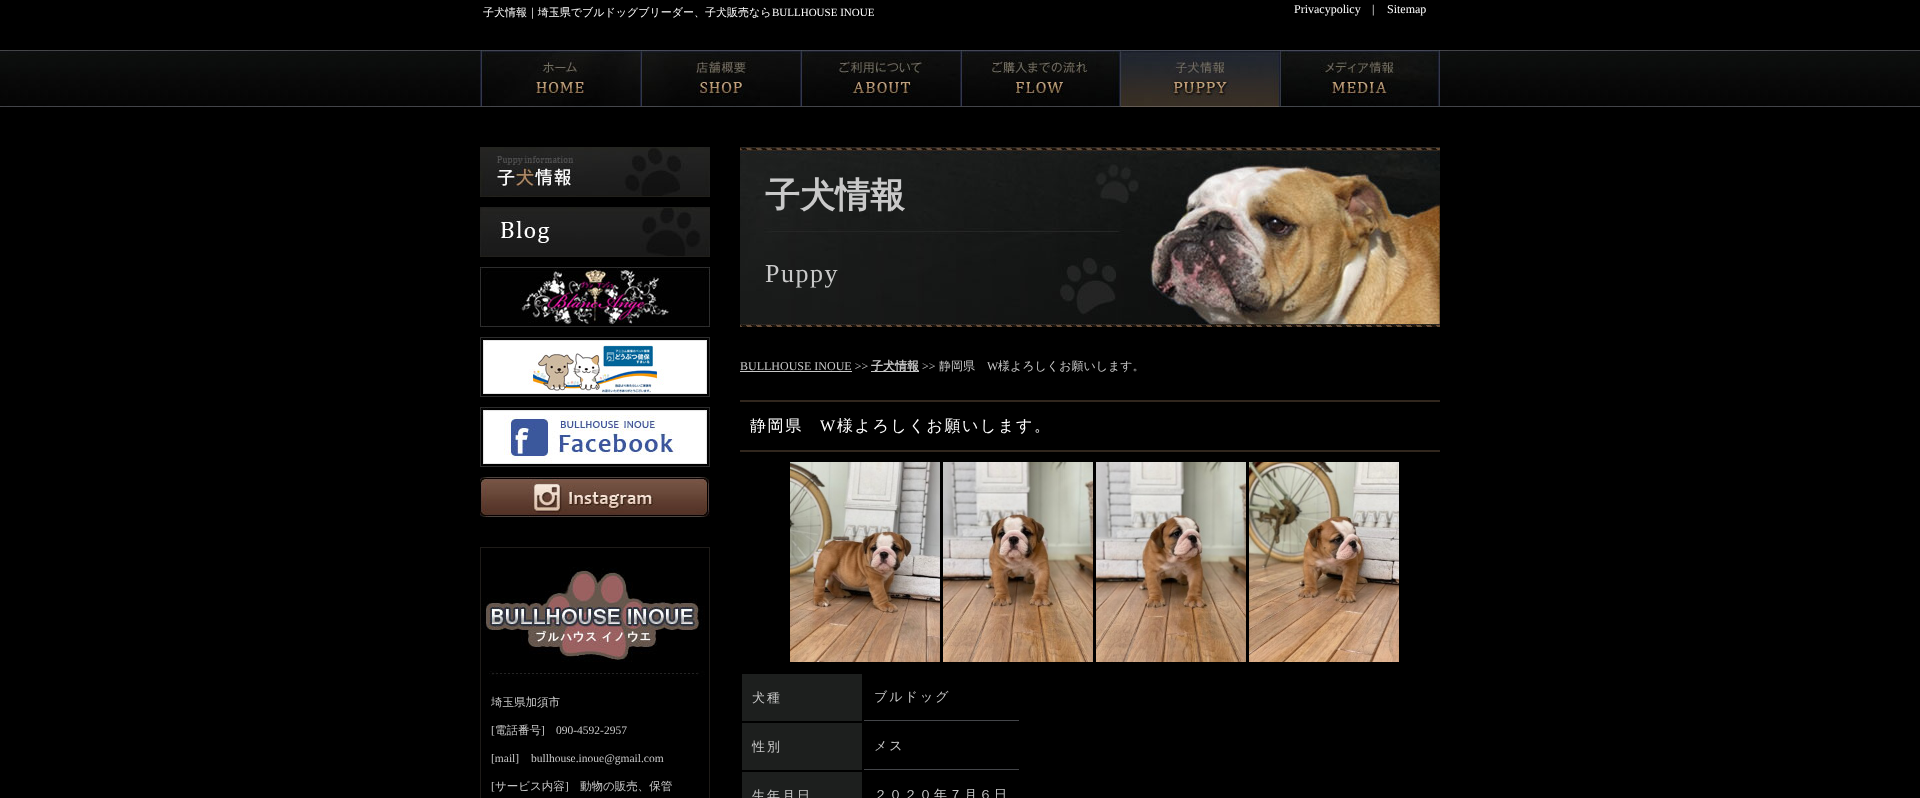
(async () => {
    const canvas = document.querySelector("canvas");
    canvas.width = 1920;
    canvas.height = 798;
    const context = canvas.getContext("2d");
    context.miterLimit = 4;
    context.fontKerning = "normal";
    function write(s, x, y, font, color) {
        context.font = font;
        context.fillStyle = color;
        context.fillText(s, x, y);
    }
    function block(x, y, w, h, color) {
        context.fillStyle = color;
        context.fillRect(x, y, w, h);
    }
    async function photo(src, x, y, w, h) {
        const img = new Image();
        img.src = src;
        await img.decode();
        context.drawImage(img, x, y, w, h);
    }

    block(0, 0, 1920, 798, "rgb(0, 0, 0)");
    write("子犬情報｜埼玉県でブルドッグブリーダー、子犬販売なら", 483, 16, "500 11px WenQuanYi Zen Hei", "rgb(255, 255, 255)");
    write("BULLHOUSE INOUE", 772, 16, "11px Liberation Serif", "rgb(255, 255, 255)");
    write("Privacypolicy", 1294, 13, "12px Liberation Serif", "rgb(255, 255, 255)");
    write("|", 1372, 13, "12px Liberation Serif", "rgb(255, 255, 255)");
    write("Sitemap", 1387, 13, "12px Liberation Serif", "rgb(255, 255, 255)");
    await photo("media/1.png", 0, 50, 1920, 57);
    await photo("media/2.png", 480, 50, 160, 57);
    await photo("media/3.png", 640, 50, 160, 57);
    await photo("media/4.png", 800, 50, 160, 56);
    await photo("media/5.png", 960, 50, 160, 56);
    await photo("media/6.png", 1120, 50, 160, 57);
    await photo("media/7.png", 1280, 50, 160, 57);
    await photo("media/8.png", 480, 147, 230, 50);
    await photo("media/9.png", 480, 207, 230, 50);
    await photo("media/10.png", 480, 267, 230, 60);
    await photo("media/11.png", 480, 337, 230, 60);
    await photo("media/12.png", 480, 407, 230, 60);
    await photo("media/13.png", 480, 477, 230, 40);
    context.strokeStyle = "rgb(30, 27, 24)";
    context.strokeRect(480.5, 547.5, 229, 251);
    await photo("media/14.png", 481, 567, 224, 110);
    write("埼玉県加須市", 491, 706, "500 11.5px WenQuanYi Zen Hei", "rgb(201, 201, 201)");
    write("[", 491, 734, "11.5px Liberation Serif", "rgb(201, 201, 201)");
    write("電話番号", 495, 734, "500 11.5px WenQuanYi Zen Hei", "rgb(201, 201, 201)");
    write("]", 541, 734, "11.5px Liberation Serif", "rgb(201, 201, 201)");
    write("090-4592-2957", 556, 734, "11.5px Liberation Serif", "rgb(201, 201, 201)");
    write("[mail]", 491, 762, "11.5px Liberation Serif", "rgb(201, 201, 201)");
    write("bullhouse.inoue@gmail.com", 531, 762, "11.5px Liberation Serif", "rgb(201, 201, 201)");
    write("[", 491, 790, "11.5px Liberation Serif", "rgb(201, 201, 201)");
    write("サービス内容", 495, 790, "500 11.5px WenQuanYi Zen Hei", "rgb(201, 201, 201)");
    write("]", 565, 790, "11.5px Liberation Serif", "rgb(201, 201, 201)");
    write("動物の販売、保管", 580, 790, "500 11.5px WenQuanYi Zen Hei", "rgb(201, 201, 201)");
    await photo("media/15.png", 740, 147, 700, 180);
    write("子犬情報", 765, 207, "bold 35px WenQuanYi Zen Hei", "rgb(201, 201, 201)");
    context.letterSpacing = "1.5px";
    write("Puppy", 765, 282, "26px Liberation Serif", "rgb(201, 201, 201)");
    context.letterSpacing = "0px";
    write("BULLHOUSE INOUE >>", 740, 370, "12px Liberation Serif", "rgb(201, 201, 201)");
    block(740, 371, 112, 1, "rgb(201, 201, 201)");
    block(871, 371, 48, 1, "rgb(201, 201, 201)");
    write("子犬情報", 871, 370, "bold 12px WenQuanYi Zen Hei", "rgb(201, 201, 201)");
    write(">>", 922, 370, "12px Liberation Serif", "rgb(201, 201, 201)");
    write("静岡県", 939, 370, "500 12px WenQuanYi Zen Hei", "rgb(201, 201, 201)");
    write("W", 987, 370, "12px Liberation Serif", "rgb(201, 201, 201)");
    write("様よろしくお願いします。", 998, 370, "500 12px WenQuanYi Zen Hei", "rgb(201, 201, 201)");
    block(740, 400, 700, 2, "rgb(49, 39, 30)");
    block(740, 450, 700, 2, "rgb(49, 39, 30)");
    context.letterSpacing = "1.6px";
    write("静岡県", 750, 431, "500 16px WenQuanYi Zen Hei", "rgb(255, 255, 255)");
    write("W", 820, 431, "16px Liberation Serif", "rgb(255, 255, 255)");
    write("様よろしくお願いします。", 837, 431, "500 16px WenQuanYi Zen Hei", "rgb(255, 255, 255)");
    await photo("media/16.png", 790, 462, 150, 200);
    await photo("media/17.png", 943, 462, 150, 200);
    await photo("media/18.png", 1096, 462, 150, 200);
    await photo("media/19.png", 1249, 462, 150, 200);
    block(742, 674, 120, 47, "rgb(29, 31, 30)");
    context.letterSpacing = "2px";
    write("犬種", 752, 702, "500 13px WenQuanYi Zen Hei", "rgb(201, 201, 201)");
    block(864, 720, 155, 1, "rgb(68, 70, 74)");
    write("ブルドッグ", 874, 701, "500 13px WenQuanYi Zen Hei", "rgb(201, 201, 201)");
    block(742, 723, 120, 47, "rgb(29, 31, 30)");
    write("性別", 752, 751, "500 13px WenQuanYi Zen Hei", "rgb(201, 201, 201)");
    block(864, 769, 155, 1, "rgb(68, 70, 74)");
    write("メス", 874, 750, "500 13px WenQuanYi Zen Hei", "rgb(201, 201, 201)");
    block(742, 772, 120, 26, "rgb(29, 31, 30)");
    write("生年月日", 752, 800, "500 13px WenQuanYi Zen Hei", "rgb(201, 201, 201)");
    write("２０２０年７月６日", 874, 799, "500 13px WenQuanYi Zen Hei", "rgb(201, 201, 201)");
})();
